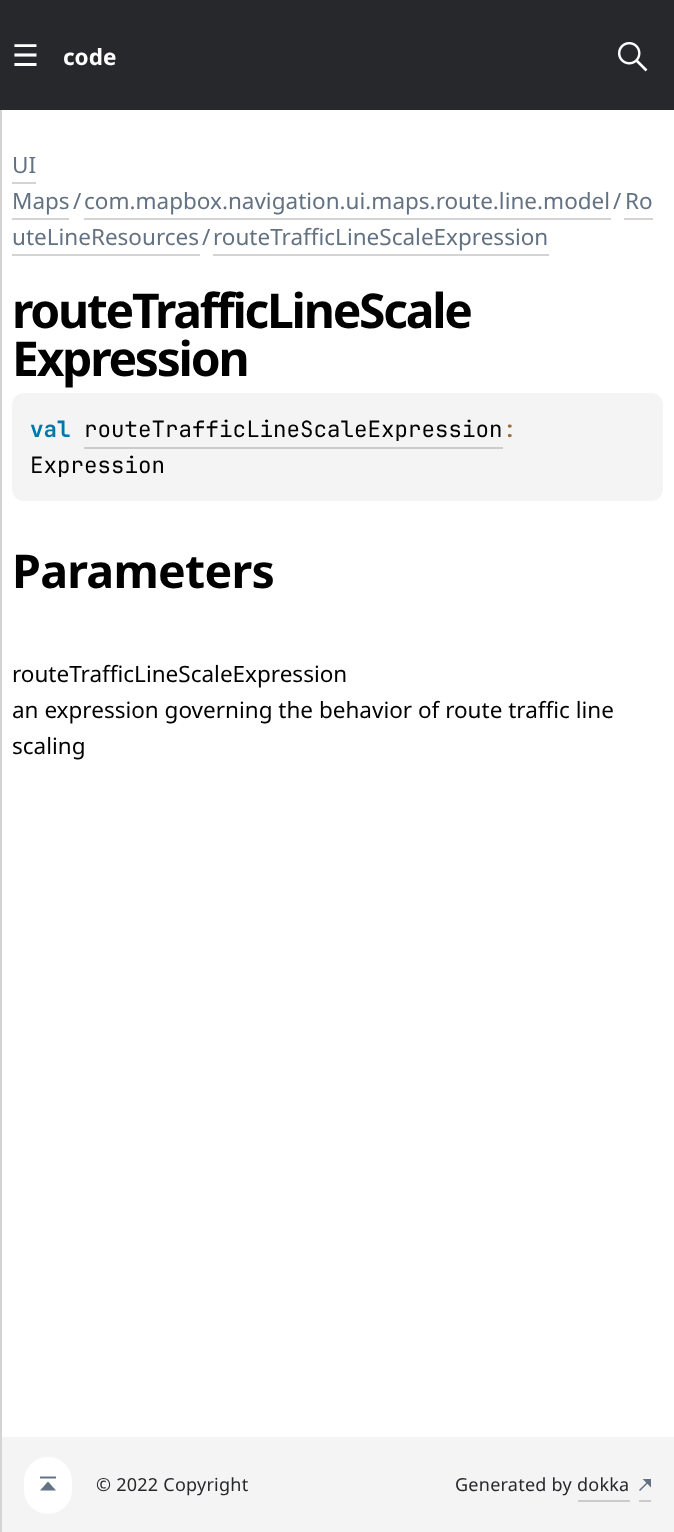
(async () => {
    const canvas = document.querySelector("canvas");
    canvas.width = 674;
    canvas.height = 1532;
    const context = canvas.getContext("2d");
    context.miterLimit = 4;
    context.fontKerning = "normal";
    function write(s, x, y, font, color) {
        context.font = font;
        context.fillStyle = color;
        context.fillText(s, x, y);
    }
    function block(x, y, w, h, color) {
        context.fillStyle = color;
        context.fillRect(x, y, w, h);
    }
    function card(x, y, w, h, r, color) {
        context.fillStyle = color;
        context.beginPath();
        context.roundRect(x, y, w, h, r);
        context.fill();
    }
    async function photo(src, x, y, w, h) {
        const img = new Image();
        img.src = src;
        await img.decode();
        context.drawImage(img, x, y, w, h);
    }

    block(0, 0, 674, 1532, "rgb(255, 255, 255)");
    block(0, 0, 674, 110, "rgb(39, 40, 44)");
    write("☰", 12, 66, "30px DejaVu Sans", "rgb(255, 255, 255)");
    write("code", 63, 65, "bold 22.5px Noto Sans", "rgb(255, 255, 255)");
    await photo("media/1.png", 618, 42, 30, 30);
    block(0, 110, 2, 1422, "rgb(212, 212, 213)");
    write("UI", 12, 173, "22.5px Noto Sans", "rgb(99, 114, 130)");
    block(12, 182, 24, 2, "rgb(212, 212, 213)");
    write("Maps", 12, 209, "22.5px Noto Sans", "rgb(99, 114, 130)");
    block(12, 218, 57, 2, "rgb(212, 212, 213)");
    write("/", 73, 209, "22.5px Noto Sans", "rgb(99, 114, 130)");
    write("com.mapbox.navigation.ui.maps.route.line.model", 84, 209, "22.5px Noto Sans", "rgb(99, 114, 130)");
    block(84, 218, 527, 2, "rgb(212, 212, 213)");
    write("/", 613, 209, "22.5px Noto Sans", "rgb(99, 114, 130)");
    write("Ro", 625, 209, "22.5px Noto Sans", "rgb(99, 114, 130)");
    block(624, 218, 29, 2, "rgb(212, 212, 213)");
    write("uteLineResources", 12, 245, "22.5px Noto Sans", "rgb(99, 114, 130)");
    block(12, 254, 188, 2, "rgb(212, 212, 213)");
    write("/", 202, 245, "22.5px Noto Sans", "rgb(99, 114, 130)");
    write("routeTrafficLineScaleExpression", 213, 245, "22.5px Noto Sans", "rgb(99, 114, 130)");
    block(213, 254, 336, 2, "rgb(212, 212, 213)");
    context.letterSpacing = "-2.25px";
    write("routeTrafficLineScale", 12, 328, "bold 48px Noto Sans", "rgb(0, 0, 0)");
    write("Expression", 12, 376, "bold 48px Noto Sans", "rgb(0, 0, 0)");
    card(12, 393, 651, 108, 12, "rgb(244, 244, 245)");
    context.letterSpacing = "0px";
    write("val", 30, 437, "bold 22.5px JetBrains Mono", "rgb(0, 119, 170)");
    write("routeTrafficLineScaleExpression", 84, 437, "22.5px JetBrains Mono", "rgb(0, 0, 0)");
    block(84, 447, 419, 2, "rgb(203, 203, 205)");
    write(":", 503, 437, "22.5px JetBrains Mono", "rgb(154, 110, 58)");
    write("Expression", 30, 473, "22.5px JetBrains Mono", "rgb(0, 0, 0)");
    context.letterSpacing = "-0.75px";
    write("Parameters", 12, 588, "bold 46.5px Noto Sans", "rgb(0, 0, 0)");
    context.letterSpacing = "0px";
    write("routeTrafficLineScaleExpression", 12, 682, "22.5px Noto Sans", "rgb(0, 0, 0)");
    write("an expression governing the behavior of route traffic line", 12, 718, "22.5px Noto Sans", "rgb(0, 0, 0)");
    write("scaling", 12, 754, "22.5px Noto Sans", "rgb(0, 0, 0)");
    block(2, 1437, 672, 95, "rgb(244, 244, 244)");
    card(24, 1457, 48, 57, 24, "rgb(255, 255, 255)");
    await photo("media/2.png", 40, 1476, 16, 15);
    context.letterSpacing = "0.25px";
    write("© 2022 Copyright", 96, 1491, "18px Noto Sans", "rgb(39, 40, 44)");
    write("Generated by dokka", 455, 1491, "18px Noto Sans", "rgb(39, 40, 44)");
    await photo("media/3.png", 639, 1479, 12, 12);
    block(578, 1500, 52, 2, "rgb(203, 203, 204)");
    block(639, 1500, 12, 2, "rgb(203, 203, 204)");
})();
